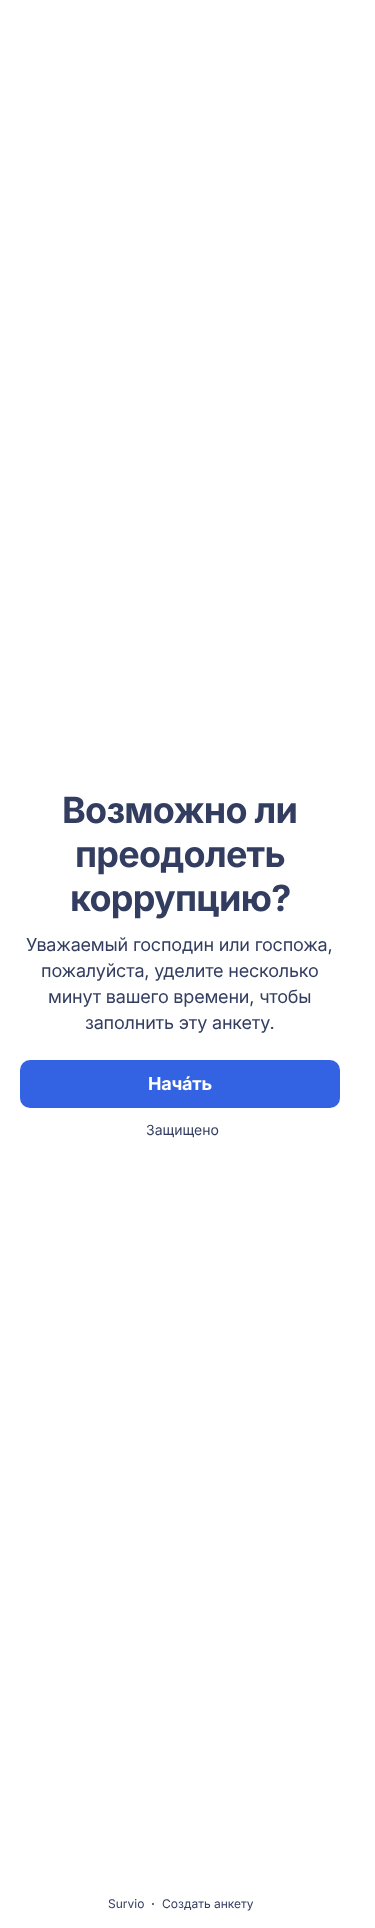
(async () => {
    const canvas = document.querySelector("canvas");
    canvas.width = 375;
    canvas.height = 1928;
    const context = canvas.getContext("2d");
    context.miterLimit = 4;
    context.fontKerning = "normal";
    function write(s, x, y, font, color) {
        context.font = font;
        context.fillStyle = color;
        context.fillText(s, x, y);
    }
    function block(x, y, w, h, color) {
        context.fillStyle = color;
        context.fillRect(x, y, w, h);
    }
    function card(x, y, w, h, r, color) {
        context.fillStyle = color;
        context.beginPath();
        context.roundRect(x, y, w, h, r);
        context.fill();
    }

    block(0, 0, 375, 1928, "rgb(255, 255, 255)");
    context.letterSpacing = "-0.75px";
    write("Возможно ли", 62, 823, "bold 36px Inter", "rgb(51, 61, 96)");
    write("преодолеть", 75, 867, "bold 36px Inter", "rgb(51, 61, 96)");
    write("коррупцию?", 70, 911, "bold 36px Inter", "rgb(51, 61, 96)");
    context.letterSpacing = "-0.2px";
    write("Уважаемый господин или госпожа,", 26, 951, "18px Inter", "rgb(51, 61, 96)");
    write("пожалуйста, уделите несколько", 41, 977, "18px Inter", "rgb(51, 61, 96)");
    write("минут вашего времени, чтобы", 48, 1003, "18px Inter", "rgb(51, 61, 96)");
    write("заполнить эту анкету.", 85, 1029, "18px Inter", "rgb(51, 61, 96)");
    card(20, 1060, 320, 48, 10, "rgb(51, 99, 226)");
    write("Нача́ть", 148, 1090, "bold 18px Inter", "rgb(255, 255, 255)");
    context.letterSpacing = "0px";
    write("Защищено", 146, 1135, "14px Inter", "rgb(51, 61, 96)");
    write("Survio", 108, 1908, "12px Inter", "rgb(51, 61, 96)");
    context.beginPath();
    context.arc(153, 1904, 1, 0, Math.PI * 2);
    context.fill();
    write("Создать анкету", 162, 1908, "12px Inter", "rgb(51, 61, 96)");
})();
